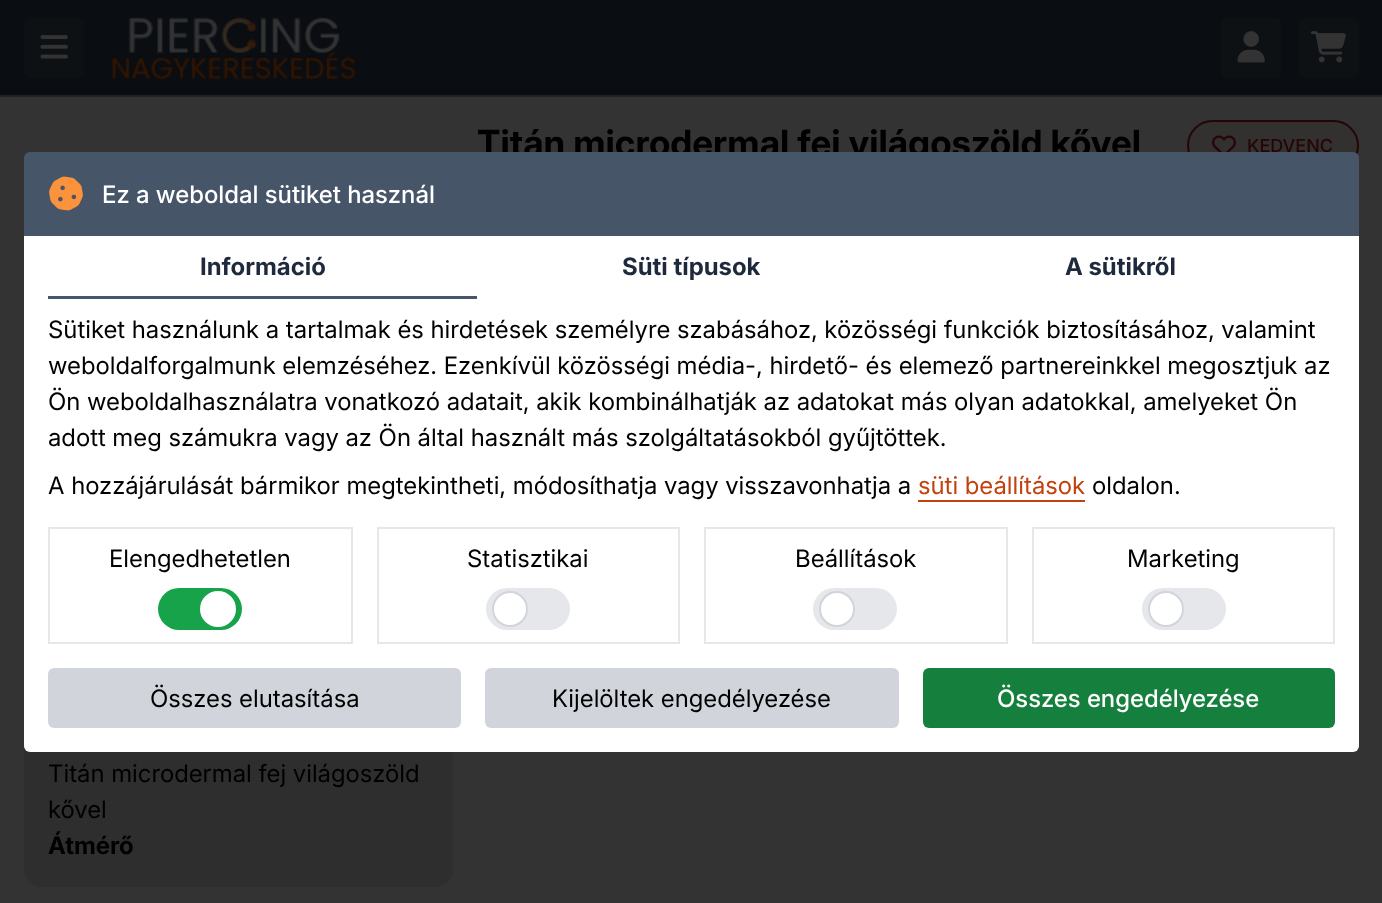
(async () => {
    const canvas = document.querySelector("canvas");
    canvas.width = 1382;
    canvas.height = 903;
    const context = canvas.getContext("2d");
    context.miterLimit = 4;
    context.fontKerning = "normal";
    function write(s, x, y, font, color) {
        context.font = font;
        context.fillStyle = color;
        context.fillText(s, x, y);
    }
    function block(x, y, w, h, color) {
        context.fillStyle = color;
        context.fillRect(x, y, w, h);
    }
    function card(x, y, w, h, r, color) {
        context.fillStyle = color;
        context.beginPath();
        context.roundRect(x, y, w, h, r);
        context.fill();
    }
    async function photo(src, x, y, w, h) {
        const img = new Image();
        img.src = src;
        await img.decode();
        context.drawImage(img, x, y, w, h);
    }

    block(0, 0, 1382, 903, "rgb(51, 51, 51)");
    block(0, 0, 1382, 95, "rgb(10, 13, 17)");
    block(0, 95, 1382, 2, "rgb(30, 33, 37)");
    card(24, 18, 60, 60, 6, "rgb(14, 17, 20)");
    await photo("media/1.png", 40, 35, 28, 24);
    await photo("media/2.png", 112, 17, 244, 63);
    card(1221, 18, 60, 60, 6, "rgb(14, 17, 20)");
    await photo("media/3.png", 1237, 31, 28, 32);
    card(1299, 18, 60, 60, 6, "rgb(14, 17, 20)");
    await photo("media/4.png", 1311, 31, 35, 32);
    write("Titán microdermal fej világoszöld kővel", 477, 156, "bold 36px 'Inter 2'", "rgb(0, 0, 0)");
    context.fillStyle = "rgb(51, 48, 48)";
    context.beginPath();
    context.roundRect(1188, 121, 170, 49, 24.5);
    context.fill();
    context.strokeStyle = "rgb(37, 6, 6)";
    context.lineWidth = 2;
    context.stroke();
    await photo("media/5.png", 1212, 135, 24, 17);
    write("KEDVENC", 1247, 152, "500 18px Inter", "rgb(37, 6, 6)");
    card(24, 731, 429, 156, 18, "rgb(46, 46, 47)");
    write("Titán microdermal fej világoszöld", 48, 782, "24px Inter", "rgb(0, 0, 0)");
    write("kővel", 48, 818, "24px Inter", "rgb(0, 0, 0)");
    write("Átmérő", 48, 854, "bold 24px Inter", "rgb(0, 0, 0)");
    context.fillStyle = "rgb(71, 85, 105)";
    context.beginPath();
    context.roundRect(24, 152, 1335, 84, [6, 6, 0, 0]);
    context.fill();
    await photo("media/6.png", 49, 176, 34, 35);
    write("Ez a weboldal sütiket használ", 102, 203, "500 24px 'Inter 2'", "rgb(255, 255, 255)");
    context.beginPath();
    context.roundRect(24, 236, 1335, 516, [0, 0, 6, 6]);
    context.fill();
    block(48, 296, 429, 3, "rgb(71, 85, 105)");
    write("Információ", 200, 275, "bold 24px Inter", "rgb(30, 41, 59)");
    write("Süti típusok", 622, 275, "bold 24px Inter", "rgb(30, 41, 59)");
    write("A sütikről", 1065, 275, "bold 24px Inter", "rgb(30, 41, 59)");
    write("Sütiket használunk a tartalmak és hirdetések személyre szabásához, közösségi funkciók biztosításához, valamint", 48, 338, "24px Inter", "rgb(0, 0, 0)");
    write("weboldalforgalmunk elemzéséhez. Ezenkívül közösségi média-, hirdető- és elemező partnereinkkel megosztjuk az", 48, 374, "24px Inter", "rgb(0, 0, 0)");
    write("Ön weboldalhasználatra vonatkozó adatait, akik kombinálhatják az adatokat más olyan adatokkal, amelyeket Ön", 48, 410, "24px Inter", "rgb(0, 0, 0)");
    write("adott meg számukra vagy az Ön által használt más szolgáltatásokból gyűjtöttek.", 48, 446, "24px Inter", "rgb(0, 0, 0)");
    write("A hozzájárulását bármikor megtekintheti, módosíthatja vagy visszavonhatja a", 48, 494, "24px Inter", "rgb(0, 0, 0)");
    write("süti beállítások", 918, 494, "24px Inter", "rgb(194, 65, 12)");
    block(918, 500, 167, 2, "rgb(194, 65, 12)");
    write("oldalon.", 1092, 494, "24px Inter", "rgb(0, 0, 0)");
    context.strokeStyle = "rgb(229, 231, 235)";
    context.strokeRect(49, 528, 303, 115);
    write("Elengedhetetlen", 109, 567, "24px Inter", "rgb(0, 0, 0)");
    card(158, 588, 84, 42, 21, "rgb(22, 163, 74)");
    context.fillStyle = "rgb(255, 255, 255)";
    context.beginPath();
    context.arc(218, 609, 17, 0, Math.PI * 2);
    context.fill();
    context.strokeStyle = "rgb(255, 255, 255)";
    context.stroke();
    context.strokeStyle = "rgb(229, 231, 235)";
    context.strokeRect(378, 528, 301, 115);
    write("Statisztikai", 467, 567, "24px Inter", "rgb(0, 0, 0)");
    card(486, 588, 84, 42, 21, "rgb(229, 231, 235)");
    context.fillStyle = "rgb(255, 255, 255)";
    context.beginPath();
    context.arc(510, 609, 17, 0, Math.PI * 2);
    context.fill();
    context.strokeStyle = "rgb(209, 213, 219)";
    context.stroke();
    context.strokeStyle = "rgb(229, 231, 235)";
    context.strokeRect(705, 528, 302, 115);
    write("Beállítások", 795, 567, "24px Inter", "rgb(0, 0, 0)");
    card(813, 588, 84, 42, 21, "rgb(229, 231, 235)");
    context.fillStyle = "rgb(255, 255, 255)";
    context.beginPath();
    context.arc(837, 609, 17, 0, Math.PI * 2);
    context.fill();
    context.strokeStyle = "rgb(209, 213, 219)";
    context.stroke();
    context.strokeStyle = "rgb(229, 231, 235)";
    context.strokeRect(1033, 528, 301, 115);
    write("Marketing", 1127, 567, "24px Inter", "rgb(0, 0, 0)");
    card(1142, 588, 84, 42, 21, "rgb(229, 231, 235)");
    context.fillStyle = "rgb(255, 255, 255)";
    context.beginPath();
    context.arc(1166, 609, 17, 0, Math.PI * 2);
    context.fill();
    context.strokeStyle = "rgb(209, 213, 219)";
    context.stroke();
    card(48, 668, 413, 60, 6, "rgb(209, 213, 219)");
    write("Összes elutasítása", 150, 707, "24px Inter", "rgb(0, 0, 0)");
    card(485, 668, 414, 60, 6, "rgb(209, 213, 219)");
    write("Kijelöltek engedélyezése", 552, 707, "24px Inter", "rgb(0, 0, 0)");
    card(923, 668, 412, 60, 6, "rgb(21, 128, 61)");
    write("Összes engedélyezése", 997, 707, "500 24px 'Inter 2'", "rgb(255, 255, 255)");
})();
